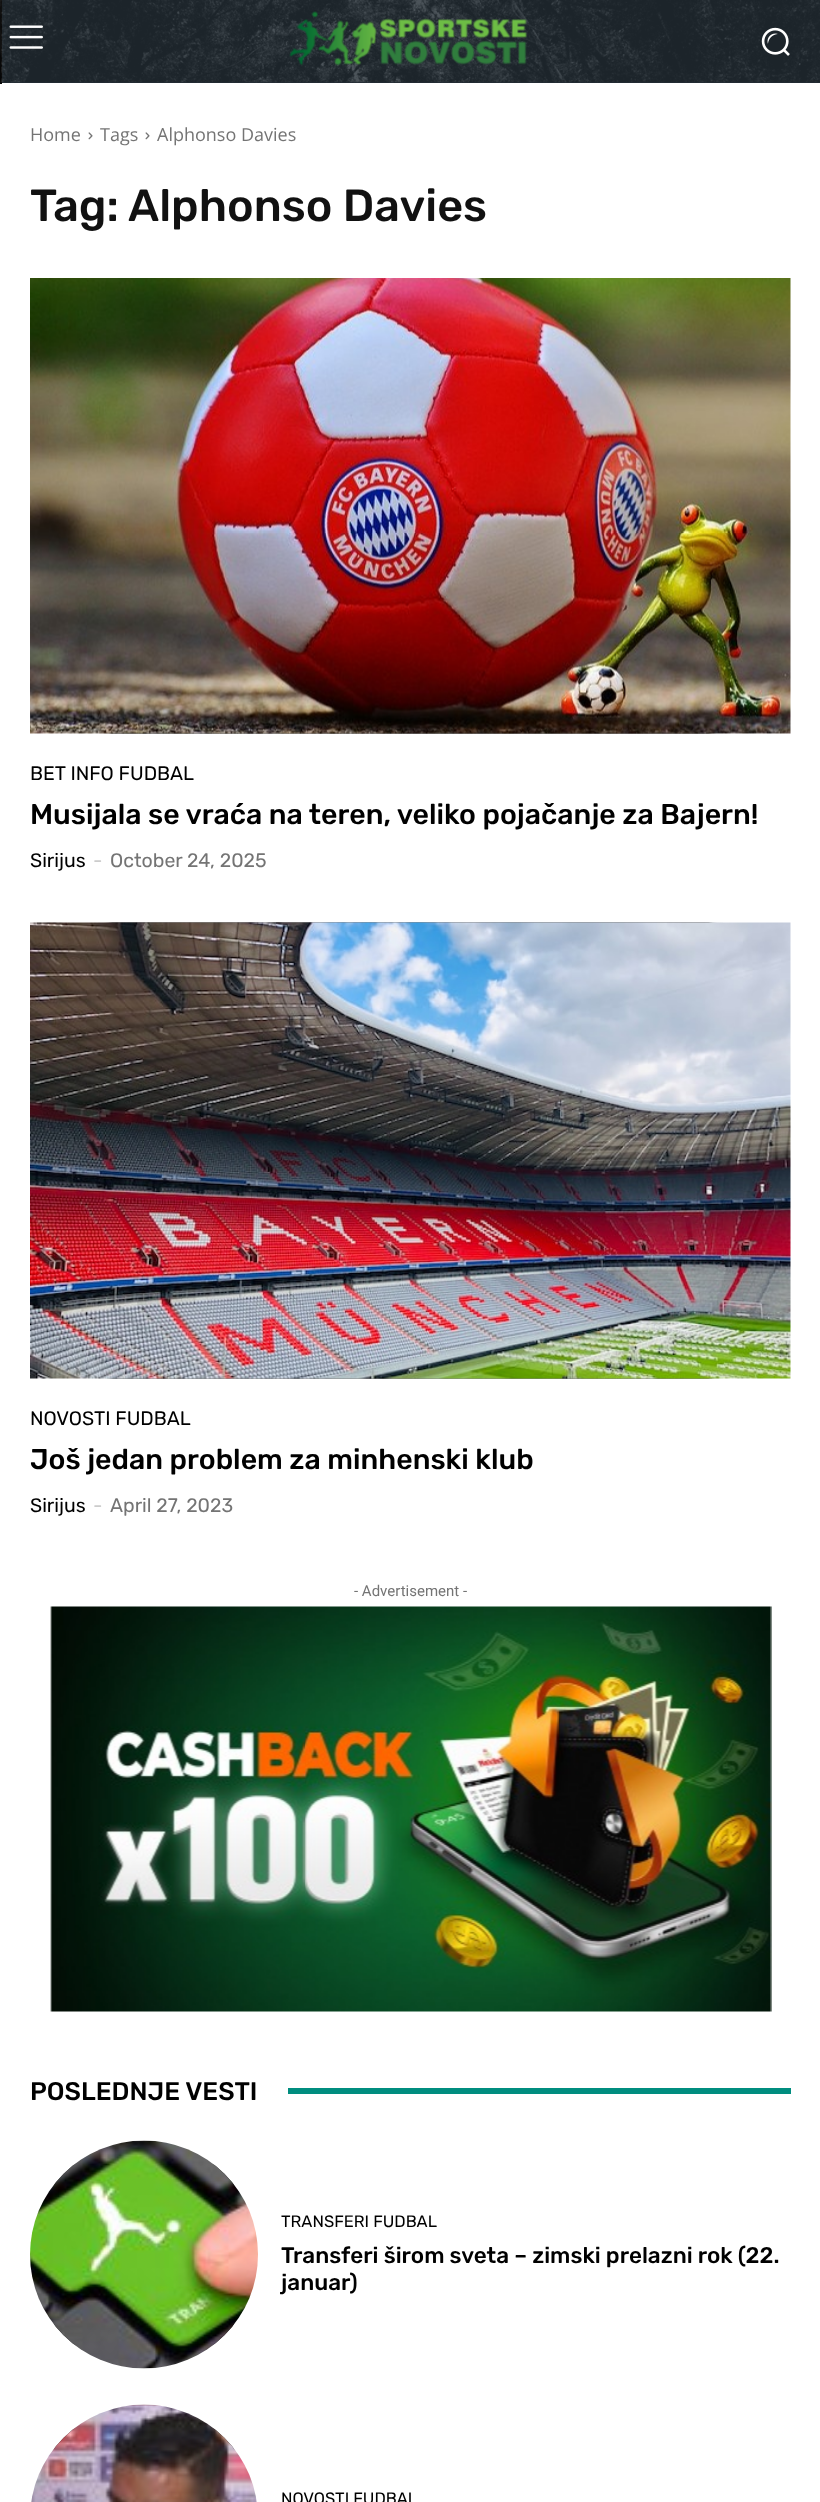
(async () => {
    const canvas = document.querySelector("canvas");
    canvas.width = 820;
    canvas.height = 2502;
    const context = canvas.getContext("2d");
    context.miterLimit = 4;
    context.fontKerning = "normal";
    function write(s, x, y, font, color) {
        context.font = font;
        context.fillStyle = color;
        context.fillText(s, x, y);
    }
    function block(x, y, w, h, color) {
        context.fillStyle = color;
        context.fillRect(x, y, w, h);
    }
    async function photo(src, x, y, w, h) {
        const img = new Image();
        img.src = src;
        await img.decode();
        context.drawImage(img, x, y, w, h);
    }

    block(0, 0, 820, 2502, "rgb(255, 255, 255)");
    await photo("media/1.png", 0, 0, 2, 84);
    context.fillStyle = "rgba(0, 0, 0, 0.12)";
    context.filter = "blur(7.5px)";
    context.beginPath();
    context.rect(-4, 80, 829, 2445);
    context.fill();
    context.filter = "none";
    block(2, 0, 818, 83, "rgb(35, 45, 53)");
    await photo("media/2.png", 1, 0, 819, 83);
    await photo("media/3.png", 9, 25, 34, 24);
    await photo("media/4.png", 289, 11, 238, 55);
    await photo("media/5.png", 761, 27, 29, 29);
    block(2, 83, 818, 1, "rgb(255, 255, 255)");
    block(0, 84, 820, 2418, "rgb(255, 255, 255)");
    write("Home", 30, 141, "18px Open Sans", "rgb(116, 116, 116)");
    await photo("media/6.png", 88, 132, 5, 8);
    write("Tags", 100, 141, "18px Open Sans", "rgb(116, 116, 116)");
    await photo("media/6.png", 145, 132, 5, 8);
    write("Alphonso Davies", 157, 141, "18px Open Sans", "rgb(116, 116, 116)");
    write("Tag:", 30, 221, "500 45px Rubik", "rgb(17, 17, 17)");
    write("Alphonso Davies", 128, 221, "500 45px Rubik", "rgb(17, 17, 17)");
    await photo("media/8.png", 98, 733, 625, 1);
    await photo("media/7.png", 30, 278, 761, 456);
    write("BET INFO FUDBAL", 30, 780, "19.5px Rubik", "rgb(0, 0, 0)");
    write("Musijala se vraća na teren, veliko pojačanje za Bajern!", 30, 824, "500 28.5px Rubik", "rgb(0, 0, 0)");
    write("Sirijus", 30, 867, "19.5px Rubik", "rgb(0, 0, 0)");
    write("-", 93, 867, "19.5px Rubik", "rgb(204, 204, 204)");
    write("October 24, 2025", 110, 867, "19.5px Rubik", "rgb(116, 116, 116)");
    await photo("media/10.png", 98, 922, 625, 457);
    await photo("media/9.png", 30, 922, 761, 457);
    write("NOVOSTI FUDBAL", 30, 1425, "19.5px Rubik", "rgb(0, 0, 0)");
    write("Još jedan problem za minhenski klub", 30, 1469, "500 28.5px Rubik", "rgb(0, 0, 0)");
    write("Sirijus", 30, 1512, "19.5px Rubik", "rgb(0, 0, 0)");
    write("-", 93, 1512, "19.5px Rubik", "rgb(204, 204, 204)");
    write("April 27, 2023", 110, 1512, "19.5px Rubik", "rgb(116, 116, 116)");
    write("- Advertisement -", 354, 1596, "15px Roboto", "rgb(116, 116, 116)");
    await photo("media/11.png", 50, 1606, 722, 406);
    write("POSLEDNJE VESTI", 30, 2100, "500 25.5px Rubik", "rgb(0, 0, 0)");
    block(288, 2088, 503, 6, "rgb(0, 141, 127)");
    await photo("media/13.png", 49, 2163, 190, 189);
    await photo("media/12.png", 30, 2140, 228, 229);
    write("TRANSFERI FUDBAL", 281, 2227, "16.5px Rubik", "rgb(0, 0, 0)");
    write("Transferi širom sveta – zimski prelazni rok (22.", 281, 2263, "500 22.5px Rubik", "rgb(0, 0, 0)");
    write("januar)", 281, 2290, "500 22.5px Rubik", "rgb(0, 0, 0)");
    await photo("media/15.png", 49, 2427, 190, 29);
    await photo("media/14.png", 31, 2404, 226, 98);
    write("NOVOSTI FUDBAL", 281, 2504, "16.5px Rubik", "rgb(0, 0, 0)");
})();
